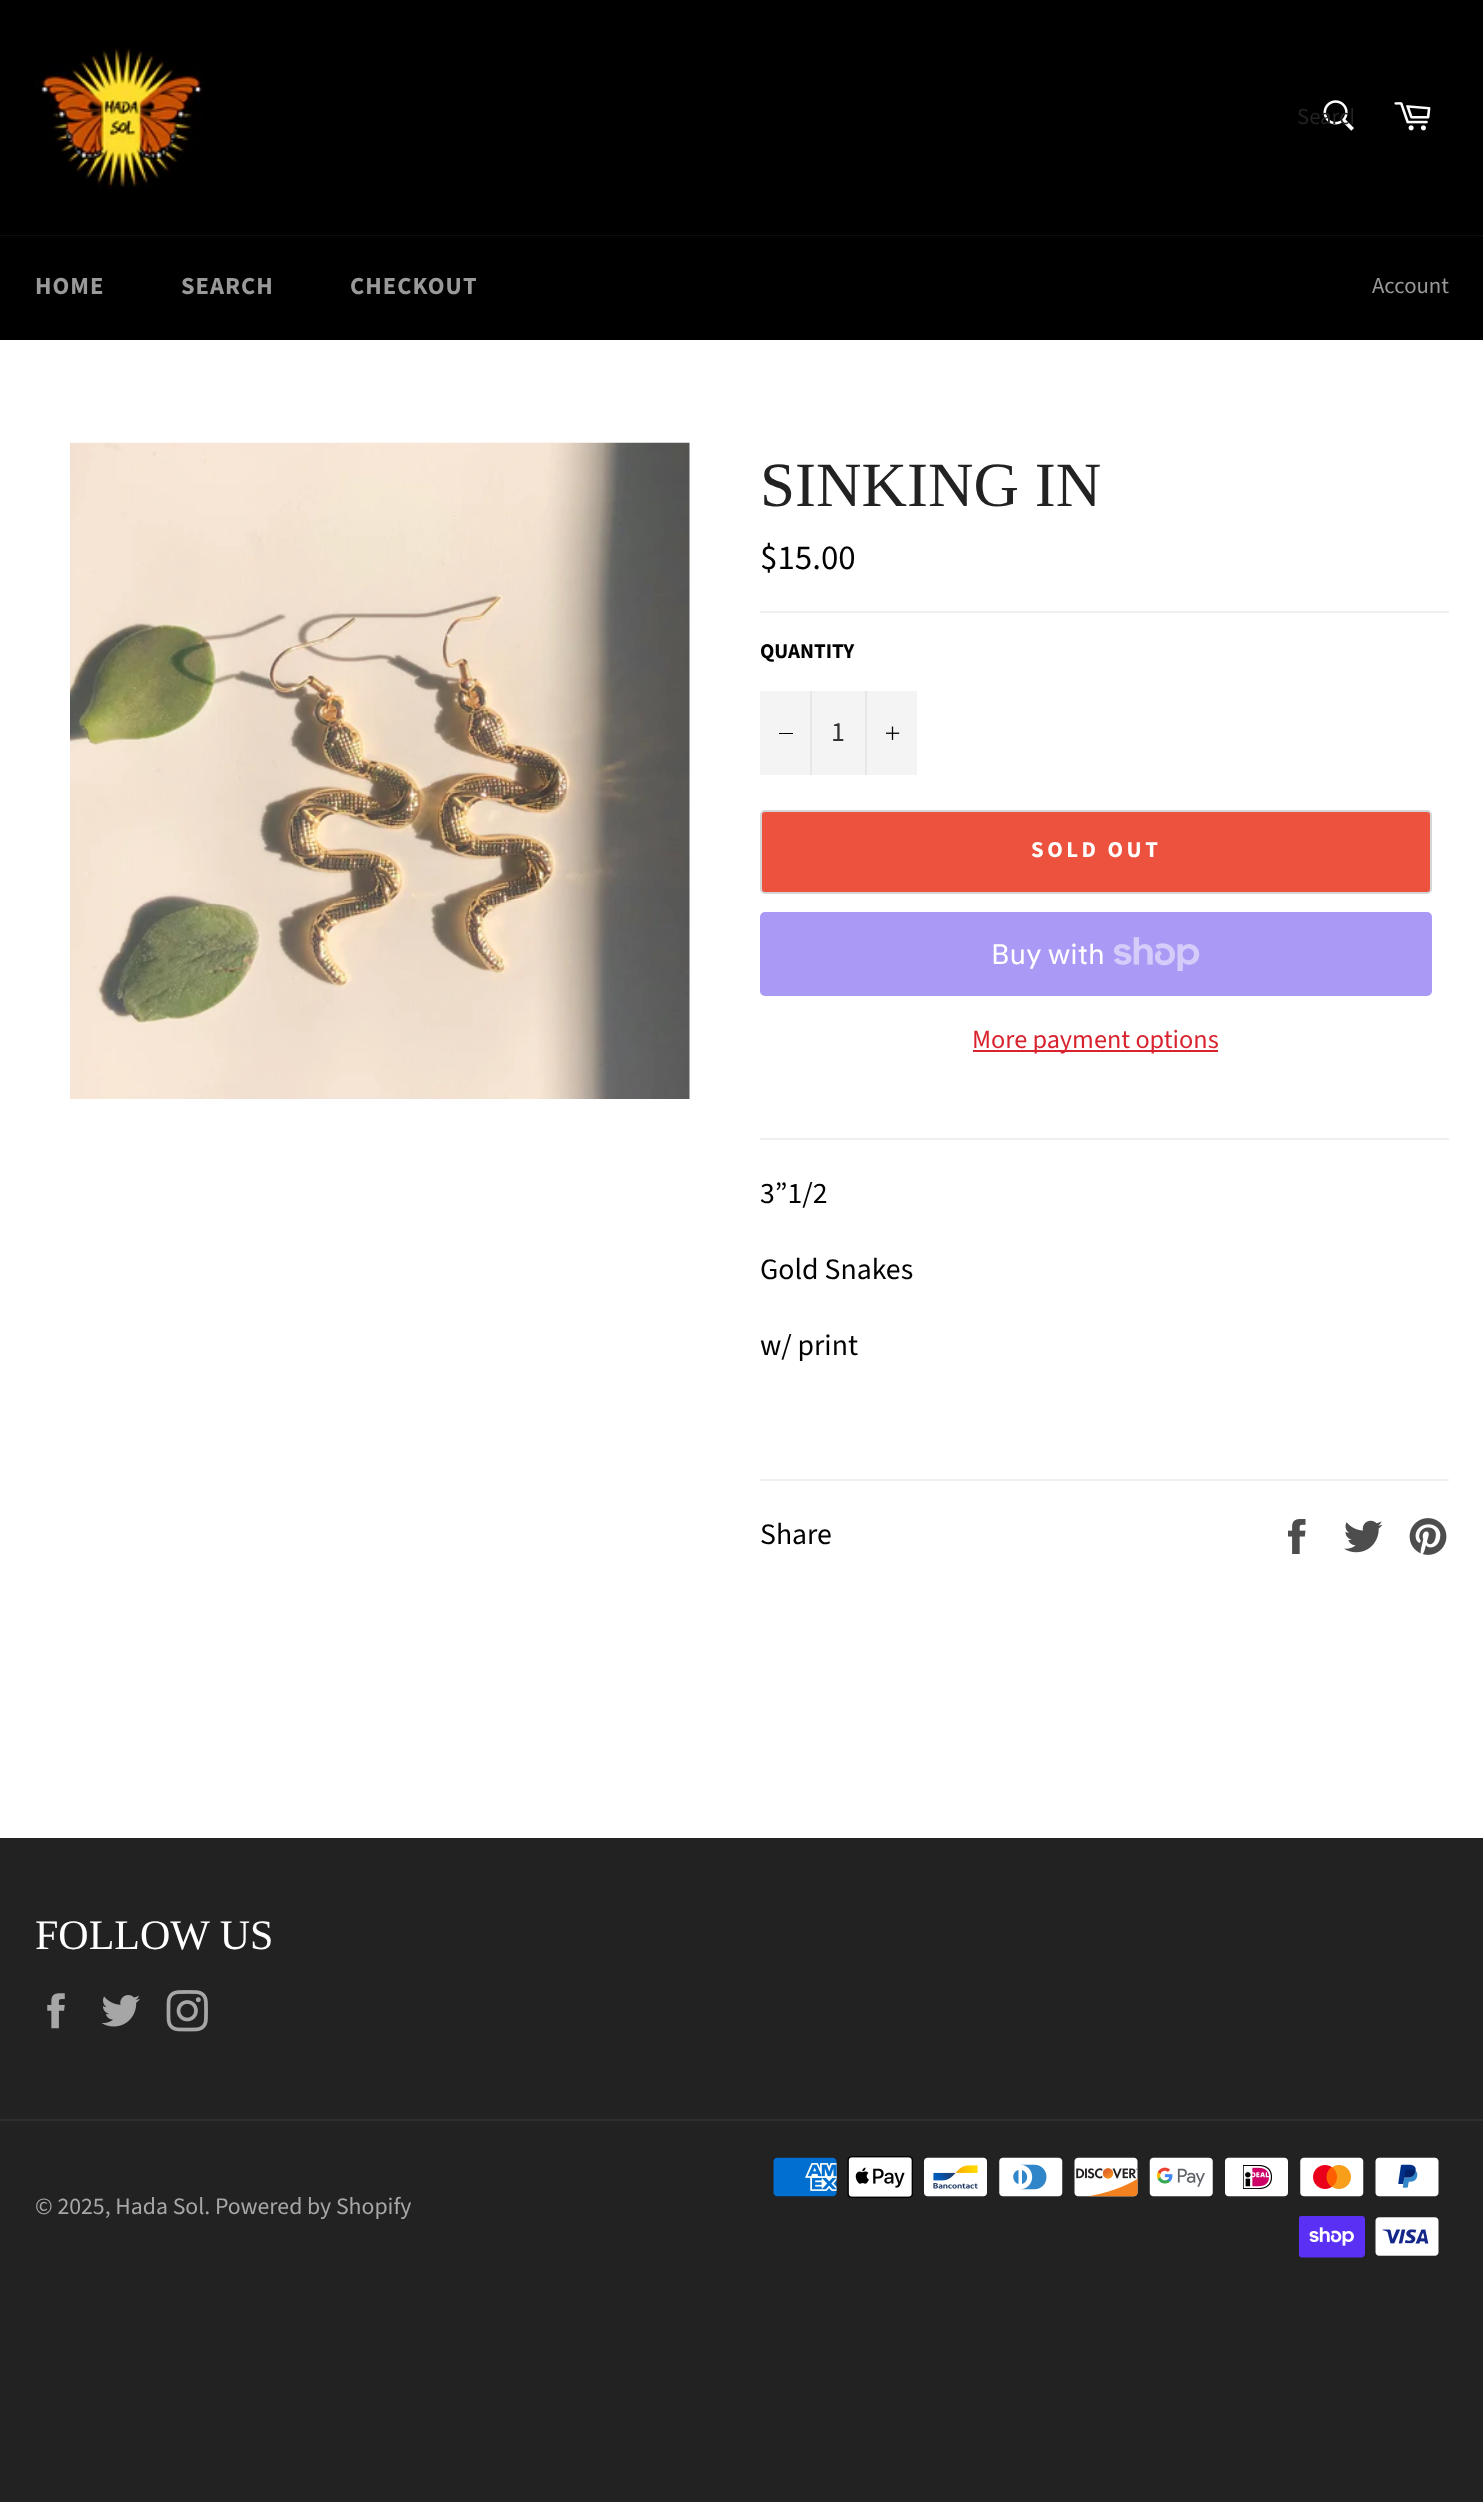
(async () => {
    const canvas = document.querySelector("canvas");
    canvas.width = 1483;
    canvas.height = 2502;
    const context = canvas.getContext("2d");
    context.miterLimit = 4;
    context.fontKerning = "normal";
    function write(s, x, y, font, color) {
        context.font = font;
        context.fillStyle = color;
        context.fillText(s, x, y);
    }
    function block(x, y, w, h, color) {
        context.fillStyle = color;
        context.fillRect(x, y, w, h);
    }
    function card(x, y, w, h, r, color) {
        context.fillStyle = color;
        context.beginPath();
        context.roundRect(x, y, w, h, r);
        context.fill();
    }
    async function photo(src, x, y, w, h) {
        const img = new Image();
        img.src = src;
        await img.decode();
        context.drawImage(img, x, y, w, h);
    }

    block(0, 0, 1483, 2502, "rgb(34, 34, 34)");
    block(0, 0, 1483, 235, "rgb(0, 0, 0)");
    await photo("media/1.png", 35, 48, 168, 141);
    await photo("media/2.png", 1323, 100, 31, 31);
    context.save();
    context.beginPath();
    context.rect(1297, 102, 56, 31);
    context.clip();
    write("Search", 1297, 124, "22.75px Source Sans Pro", "rgb(34, 34, 34)");
    context.restore();
    await photo("media/3.png", 1394, 102, 37, 29);
    block(0, 235, 1483, 1, "rgb(13, 13, 13)");
    block(0, 236, 1483, 104, "rgb(0, 0, 0)");
    context.letterSpacing = "1px";
    write("HOME", 35, 294, "bold 24.5px Source Sans Pro", "rgb(153, 153, 153)");
    write("SEARCH", 181, 294, "bold 24.5px Source Sans Pro", "rgb(153, 153, 153)");
    write("CHECKOUT", 350, 294, "bold 24.5px Source Sans Pro", "rgb(153, 153, 153)");
    context.letterSpacing = "0px";
    write("Account", 1372, 293, "22.75px Source Sans Pro", "rgb(153, 153, 153)");
    block(0, 340, 1483, 1498, "rgb(255, 255, 255)");
    await photo("media/4.png", 70, 442, 620, 657);
    write("SINKING IN", 760, 506, "63px Liberation Serif", "rgb(34, 34, 34)");
    write("$15.00", 760, 569, "35px Source Sans Pro", "rgb(0, 0, 0)");
    block(760, 611, 689, 2, "rgb(240, 240, 240)");
    write("QUANTITY", 760, 658, "bold 21px Source Sans Pro", "rgb(0, 0, 0)");
    block(760, 691, 157, 84, "rgb(244, 244, 244)");
    block(810, 691, 2, 84, "rgb(231, 231, 231)");
    block(779, 733, 14, 1, "rgb(0, 0, 0)");
    write("1", 831, 741, "28px Source Sans Pro", "rgb(51, 51, 51)");
    block(865, 691, 2, 84, "rgb(231, 231, 231)");
    await photo("media/5.png", 886, 726, 14, 14);
    context.fillStyle = "rgb(236, 82, 62)";
    context.beginPath();
    context.roundRect(761, 811, 670, 82, 4);
    context.fill();
    context.strokeStyle = "rgb(213, 213, 213)";
    context.lineWidth = 2;
    context.stroke();
    context.letterSpacing = "3.5px";
    write("SOLD OUT", 1031, 857, "bold 22.75px Source Sans Pro", "rgb(255, 255, 255)");
    card(760, 912, 672, 84, 5, "rgb(170, 153, 245)");
    context.letterSpacing = "0px";
    write("Buy with", 991, 964, "28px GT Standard", "rgb(255, 255, 255)");
    await photo("media/6.png", 1114, 937, 86, 34);
    block(973, 1050, 245, 2, "rgb(216, 35, 47)");
    write("More payment options", 972, 1048, "26.25px Source Sans Pro", "rgb(216, 35, 47)");
    block(760, 1138, 689, 2, "rgb(240, 240, 240)");
    write("3”1/2", 760, 1203, "29.75px Source Sans Pro", "rgb(0, 0, 0)");
    write("Gold Snakes", 760, 1279, "29.75px Source Sans Pro", "rgb(0, 0, 0)");
    write("w/ print", 760, 1355, "29.75px Source Sans Pro", "rgb(0, 0, 0)");
    block(760, 1479, 689, 2, "rgb(240, 240, 240)");
    write("Share", 760, 1544, "29.75px Source Sans Pro", "rgb(0, 0, 0)");
    await photo("media/7.png", 1288, 1519, 18, 35);
    await photo("media/8.png", 1344, 1520, 39, 33);
    await photo("media/9.png", 1409, 1518, 38, 37);
    write("FOLLOW US", 35, 1949, "42px Liberation Serif", "rgb(255, 255, 255)");
    await photo("media/10.png", 47, 1993, 18, 36);
    await photo("media/11.png", 101, 1995, 39, 32);
    await photo("media/12.png", 166, 1990, 42, 42);
    block(0, 2119, 1483, 2, "rgb(47, 47, 47)");
    write("© 2025, Hada Sol. Powered by Shopify", 35, 2214, "23.75px Source Sans Pro", "rgb(167, 167, 167)");
    await photo("media/13.png", 773, 2157, 64, 40);
    await photo("media/14.png", 847, 2156, 66, 42);
    await photo("media/15.png", 924, 2157, 63, 40);
    await photo("media/16.png", 999, 2157, 64, 40);
    await photo("media/17.png", 1074, 2157, 64, 40);
    await photo("media/18.png", 1149, 2157, 64, 40);
    await photo("media/19.png", 1225, 2157, 63, 40);
    await photo("media/20.png", 1300, 2157, 64, 40);
    await photo("media/21.png", 1375, 2157, 64, 40);
    await photo("media/22.png", 1299, 2216, 66, 42);
    await photo("media/23.png", 1375, 2217, 64, 39);
})();
